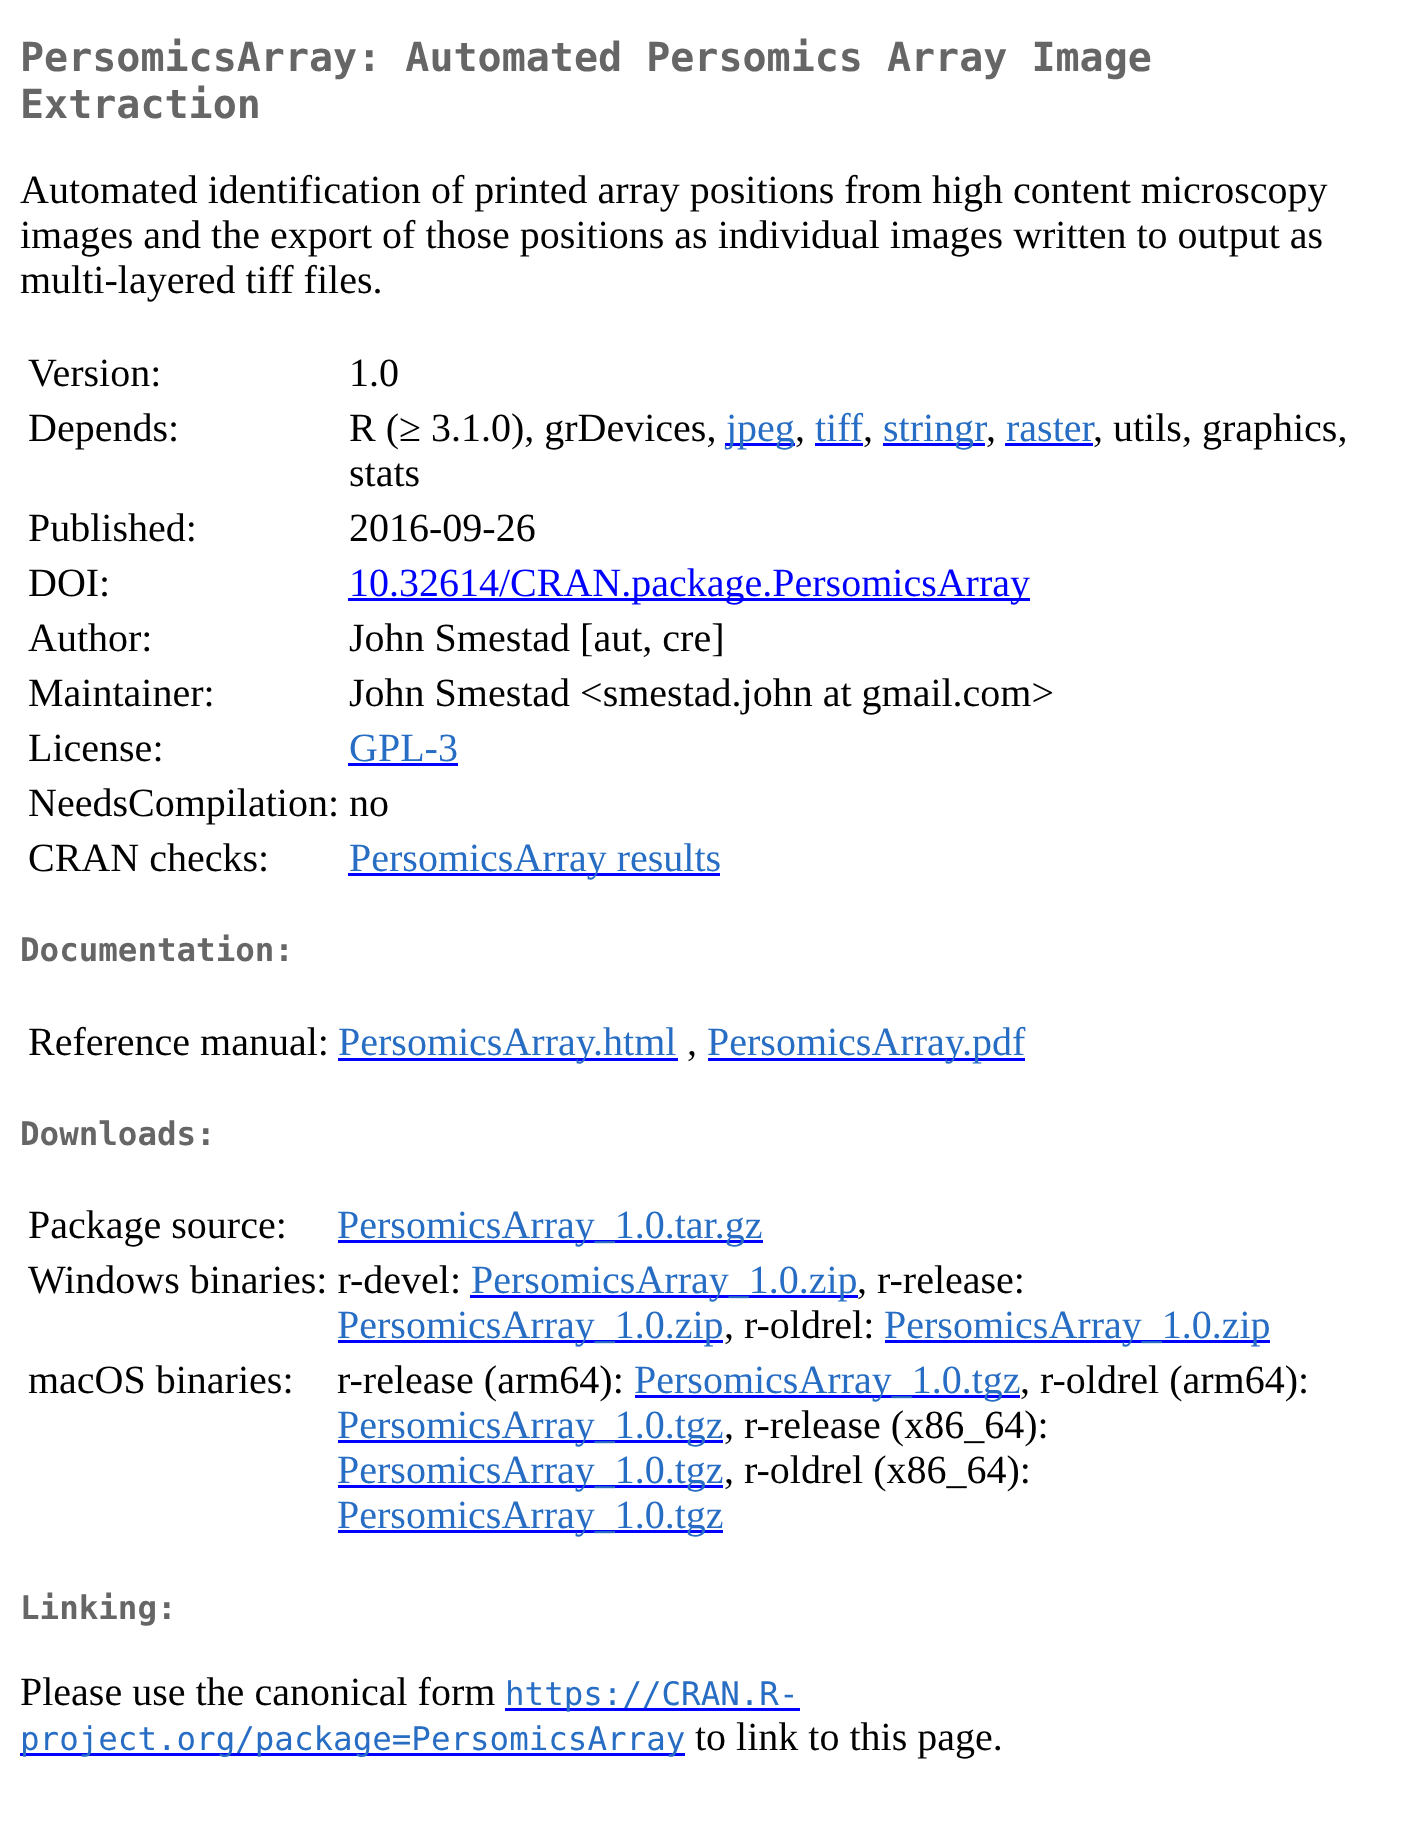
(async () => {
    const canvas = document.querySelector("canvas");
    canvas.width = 1401;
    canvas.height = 1832;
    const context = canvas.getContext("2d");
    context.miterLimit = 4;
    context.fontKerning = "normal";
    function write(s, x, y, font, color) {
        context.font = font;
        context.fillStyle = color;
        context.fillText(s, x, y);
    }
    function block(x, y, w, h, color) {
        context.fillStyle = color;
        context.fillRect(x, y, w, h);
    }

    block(0, 0, 1401, 1832, "rgb(255, 255, 255)");
    write("PersomicsArray: Automated Persomics Array Image", 20, 71, "bold 40px DejaVu Sans Mono", "rgb(102, 102, 102)");
    write("Extraction", 20, 118, "bold 40px DejaVu Sans Mono", "rgb(102, 102, 102)");
    write("Automated identification of printed array positions from high content microscopy", 20, 203, "40px Liberation Serif", "rgb(0, 0, 0)");
    write("images and the export of those positions as individual images written to output as", 20, 248, "40px Liberation Serif", "rgb(0, 0, 0)");
    write("multi-layered tiff files.", 20, 293, "40px Liberation Serif", "rgb(0, 0, 0)");
    write("Version:", 28, 386, "40px Liberation Serif", "rgb(0, 0, 0)");
    write("1.0", 349, 386, "40px Liberation Serif", "rgb(0, 0, 0)");
    write("Depends:", 28, 441, "40px Liberation Serif", "rgb(0, 0, 0)");
    write("R (≥ 3.1.0), grDevices,", 349, 441, "40px Liberation Serif", "rgb(0, 0, 0)");
    block(725, 443, 70, 3, "rgb(0, 0, 255)");
    write("jpeg", 726, 441, "40px Liberation Serif", "rgb(39, 109, 195)");
    write(",", 795, 441, "40px Liberation Serif", "rgb(0, 0, 0)");
    write("tiff", 815, 441, "40px Liberation Serif", "rgb(39, 109, 195)");
    block(815, 443, 48, 3, "rgb(0, 0, 255)");
    write(",", 863, 441, "40px Liberation Serif", "rgb(0, 0, 0)");
    block(883, 443, 102, 3, "rgb(0, 0, 255)");
    write("stringr", 883, 441, "40px Liberation Serif", "rgb(39, 109, 195)");
    write(",", 986, 441, "40px Liberation Serif", "rgb(0, 0, 0)");
    write("raster", 1006, 441, "40px Liberation Serif", "rgb(39, 109, 195)");
    block(1005, 443, 88, 3, "rgb(0, 0, 255)");
    write(", utils, graphics,", 1093, 441, "40px Liberation Serif", "rgb(0, 0, 0)");
    write("stats", 349, 486, "40px Liberation Serif", "rgb(0, 0, 0)");
    write("Published:", 28, 541, "40px Liberation Serif", "rgb(0, 0, 0)");
    write("2016-09-26", 349, 541, "40px Liberation Serif", "rgb(0, 0, 0)");
    write("DOI:", 28, 596, "40px Liberation Serif", "rgb(0, 0, 0)");
    block(348, 598, 682, 3, "rgb(0, 0, 255)");
    write("10.32614/CRAN.package.PersomicsArray", 349, 596, "40px Liberation Serif", "rgb(0, 0, 255)");
    write("Author:", 28, 651, "40px Liberation Serif", "rgb(0, 0, 0)");
    write("John Smestad [aut, cre]", 349, 651, "40px Liberation Serif", "rgb(0, 0, 0)");
    write("Maintainer:", 28, 706, "40px Liberation Serif", "rgb(0, 0, 0)");
    write("John Smestad <smestad.john at gmail.com>", 349, 706, "40px Liberation Serif", "rgb(0, 0, 0)");
    write("License:", 28, 761, "40px Liberation Serif", "rgb(0, 0, 0)");
    write("GPL-3", 349, 761, "40px Liberation Serif", "rgb(39, 109, 195)");
    block(348, 763, 110, 3, "rgb(0, 0, 255)");
    write("NeedsCompilation: no", 28, 816, "40px Liberation Serif", "rgb(0, 0, 0)");
    write("CRAN checks:", 28, 871, "40px Liberation Serif", "rgb(0, 0, 0)");
    block(348, 873, 372, 3, "rgb(0, 0, 255)");
    write("PersomicsArray results", 349, 871, "40px Liberation Serif", "rgb(39, 109, 195)");
    write("Documentation:", 20, 961, "bold 32.5px DejaVu Sans Mono", "rgb(102, 102, 102)");
    write("Reference manual:", 28, 1055, "40px Liberation Serif", "rgb(0, 0, 0)");
    block(338, 1058, 340, 3, "rgb(0, 0, 255)");
    write("PersomicsArray.html", 338, 1055, "40px Liberation Serif", "rgb(39, 109, 195)");
    write(",", 687, 1055, "40px Liberation Serif", "rgb(0, 0, 0)");
    block(708, 1058, 317, 3, "rgb(0, 0, 255)");
    write("PersomicsArray.pdf", 707, 1055, "40px Liberation Serif", "rgb(39, 109, 195)");
    write("Downloads:", 20, 1145, "bold 32.5px DejaVu Sans Mono", "rgb(102, 102, 102)");
    write("Package source:", 28, 1238, "40px Liberation Serif", "rgb(0, 0, 0)");
    block(338, 1240, 425, 3, "rgb(0, 0, 255)");
    write("PersomicsArray_1.0.tar.gz", 337, 1238, "40px Liberation Serif", "rgb(39, 109, 195)");
    write("Windows binaries: r-devel:", 28, 1293, "40px Liberation Serif", "rgb(0, 0, 0)");
    block(470, 1295, 388, 3, "rgb(0, 0, 255)");
    write("PersomicsArray_1.0.zip", 471, 1293, "40px Liberation Serif", "rgb(39, 109, 195)");
    write(", r-release:", 857, 1293, "40px Liberation Serif", "rgb(0, 0, 0)");
    block(338, 1340, 385, 3, "rgb(0, 0, 255)");
    write("PersomicsArray_1.0.zip", 337, 1338, "40px Liberation Serif", "rgb(39, 109, 195)");
    write(", r-oldrel:", 724, 1338, "40px Liberation Serif", "rgb(0, 0, 0)");
    block(885, 1340, 385, 3, "rgb(0, 0, 255)");
    write("PersomicsArray_1.0.zip", 884, 1338, "40px Liberation Serif", "rgb(39, 109, 195)");
    write("macOS binaries:", 28, 1393, "40px Liberation Serif", "rgb(0, 0, 0)");
    write("r-release (arm64):", 337, 1393, "40px Liberation Serif", "rgb(0, 0, 0)");
    block(635, 1395, 385, 3, "rgb(0, 0, 255)");
    write("PersomicsArray_1.0.tgz", 634, 1393, "40px Liberation Serif", "rgb(39, 109, 195)");
    write(", r-oldrel (arm64):", 1020, 1393, "40px Liberation Serif", "rgb(0, 0, 0)");
    block(338, 1440, 385, 3, "rgb(0, 0, 255)");
    write("PersomicsArray_1.0.tgz", 337, 1438, "40px Liberation Serif", "rgb(39, 109, 195)");
    write(", r-release (x86_64):", 724, 1438, "40px Liberation Serif", "rgb(0, 0, 0)");
    block(338, 1485, 385, 3, "rgb(0, 0, 255)");
    write("PersomicsArray_1.0.tgz", 337, 1483, "40px Liberation Serif", "rgb(39, 109, 195)");
    write(", r-oldrel (x86_64):", 724, 1483, "40px Liberation Serif", "rgb(0, 0, 0)");
    block(338, 1530, 385, 3, "rgb(0, 0, 255)");
    write("PersomicsArray_1.0.tgz", 337, 1528, "40px Liberation Serif", "rgb(39, 109, 195)");
    write("Linking:", 20, 1619, "bold 32.5px DejaVu Sans Mono", "rgb(102, 102, 102)");
    write("Please use the canonical form", 20, 1705, "40px Liberation Serif", "rgb(0, 0, 0)");
    block(505, 1708, 295, 3, "rgb(0, 0, 255)");
    write("https://CRAN.R-", 505, 1705, "32.5px DejaVu Sans Mono", "rgb(39, 109, 195)");
    block(20, 1753, 665, 3, "rgb(0, 0, 255)");
    write("project.org/package=PersomicsArray", 20, 1750, "32.5px DejaVu Sans Mono", "rgb(39, 109, 195)");
    write("to link to this page.", 695, 1750, "40px Liberation Serif", "rgb(0, 0, 0)");
})();
